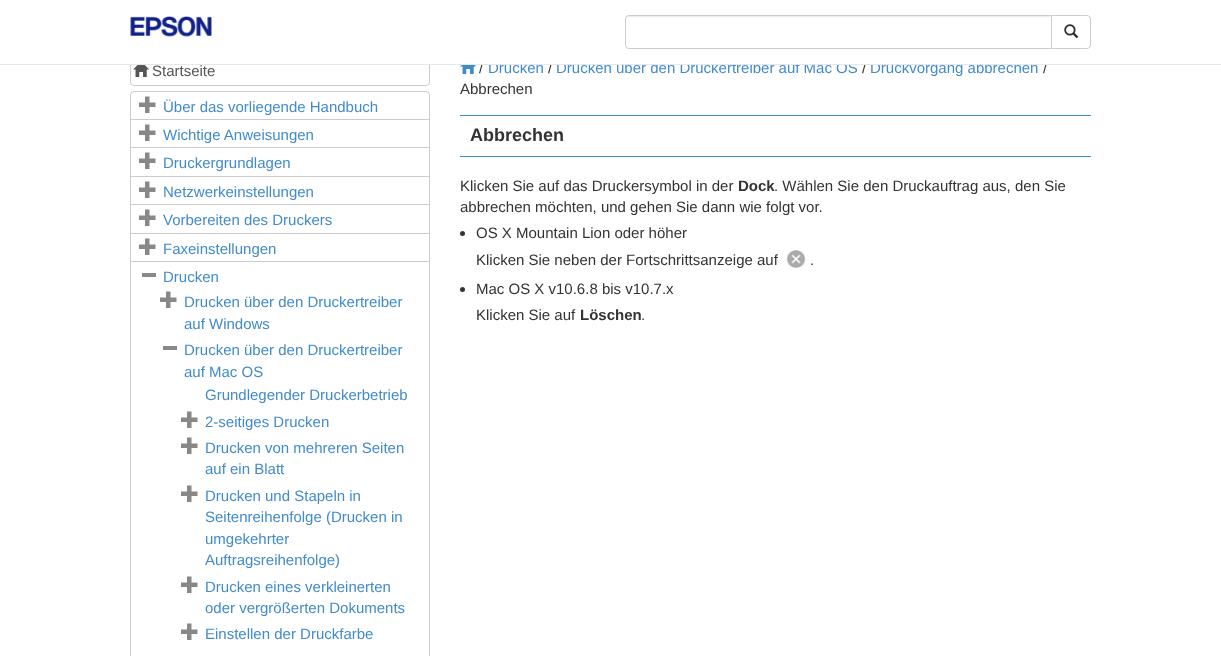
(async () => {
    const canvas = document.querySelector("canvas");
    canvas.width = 1221;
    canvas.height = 656;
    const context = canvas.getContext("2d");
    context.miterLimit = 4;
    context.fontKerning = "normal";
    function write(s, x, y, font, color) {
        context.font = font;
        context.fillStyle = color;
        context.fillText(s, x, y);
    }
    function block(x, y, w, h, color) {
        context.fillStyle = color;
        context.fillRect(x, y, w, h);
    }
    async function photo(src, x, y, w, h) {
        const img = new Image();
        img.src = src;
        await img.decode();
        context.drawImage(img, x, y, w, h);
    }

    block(0, 0, 1221, 656, "rgb(255, 255, 255)");
    context.beginPath();
    context.roundRect(130.5, 57.5, 299, 28, 3.5);
    context.strokeStyle = "rgb(204, 204, 204)";
    context.stroke();
    write("/", 479, 73, "15px Liberation Sans", "rgb(51, 51, 51)");
    write("Drucken", 488, 73, "15px Liberation Sans", "rgb(66, 139, 202)");
    write("/", 548, 73, "15px Liberation Sans", "rgb(51, 51, 51)");
    write("Drucken über den Druckertreiber auf Mac OS", 556, 73, "15px Liberation Sans", "rgb(66, 139, 202)");
    write("/", 862, 73, "15px Liberation Sans", "rgb(51, 51, 51)");
    write("Druckvorgang abbrechen", 870, 73, "15px Liberation Sans", "rgb(66, 139, 202)");
    write("/", 1043, 73, "15px Liberation Sans", "rgb(51, 51, 51)");
    block(130, 57, 918, 7, "rgb(255, 255, 255)");
    block(0, 64, 1221, 1, "rgb(231, 231, 231)");
    await photo("media/1.png", 130, 16, 82, 21);
    context.beginPath();
    context.roundRect(1051.5, 15.5, 39, 33, [0, 3.5, 3.5, 0]);
    context.stroke();
    context.fillStyle = "rgb(255, 255, 255)";
    context.beginPath();
    context.roundRect(625, 15, 427, 34, [4, 0, 0, 4]);
    context.fill();
    context.fillStyle = "rgb(236, 236, 236)";
    context.beginPath();
    context.moveTo(629, 17);
    context.lineTo(1051, 17);
    context.lineTo(1051, 16);
    context.lineTo(629, 16);
    context.bezierCurveTo(627, 16, 626, 18, 626, 20);
    context.bezierCurveTo(626, 18, 627, 17, 629, 17);
    context.closePath();
    context.fill();
    context.beginPath();
    context.roundRect(625.5, 15.5, 426, 33, [3.5, 0, 0, 3.5]);
    context.stroke();
    await photo("media/2.png", 1064, 24, 15, 15);
    await photo("media/3.png", 133, 65, 17, 12);
    write("Startseite", 152, 76, "15px Liberation Sans", "rgb(85, 85, 85)");
    context.beginPath();
    context.roundRect(130.5, 91.5, 299, 28, [3.5, 3.5, 0, 0]);
    context.stroke();
    await photo("media/4.png", 139, 96, 17, 17);
    write("Über das vorliegende Handbuch", 163, 112, "15px Liberation Sans", "rgb(66, 139, 202)");
    context.strokeRect(130.5, 119.5, 299, 28);
    await photo("media/4.png", 139, 124, 17, 17);
    write("Wichtige Anweisungen", 163, 140, "15px Liberation Sans", "rgb(66, 139, 202)");
    context.strokeRect(130.5, 147.5, 299, 29);
    await photo("media/4.png", 139, 152, 17, 17);
    write("Druckergrundlagen", 163, 168, "15px Liberation Sans", "rgb(66, 139, 202)");
    context.strokeRect(130.5, 176.5, 299, 28);
    await photo("media/4.png", 139, 181, 17, 17);
    write("Netzwerkeinstellungen", 163, 197, "15px Liberation Sans", "rgb(66, 139, 202)");
    context.strokeRect(130.5, 204.5, 299, 29);
    await photo("media/4.png", 139, 209, 17, 17);
    write("Vorbereiten des Druckers", 163, 225, "15px Liberation Sans", "rgb(66, 139, 202)");
    context.strokeRect(130.5, 233.5, 299, 28);
    await photo("media/4.png", 139, 238, 17, 17);
    write("Faxeinstellungen", 163, 254, "15px Liberation Sans", "rgb(66, 139, 202)");
    context.strokeRect(130.5, 261.5, 299, 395);
    block(142, 273, 14, 4, "rgb(136, 136, 136)");
    write("Drucken", 163, 282, "15px Liberation Sans", "rgb(66, 139, 202)");
    await photo("media/4.png", 160, 291, 17, 17);
    write("Drucken über den Druckertreiber", 184, 307, "15px Liberation Sans", "rgb(66, 139, 202)");
    write("auf Windows", 184, 329, "15px Liberation Sans", "rgb(66, 139, 202)");
    block(163, 346, 14, 4, "rgb(136, 136, 136)");
    write("Drucken über den Druckertreiber", 184, 355, "15px Liberation Sans", "rgb(66, 139, 202)");
    write("auf Mac OS", 184, 377, "15px Liberation Sans", "rgb(66, 139, 202)");
    write("Grundlegender Druckerbetrieb", 205, 400, "15px Liberation Sans", "rgb(66, 139, 202)");
    await photo("media/4.png", 181, 411, 17, 17);
    write("2-seitiges Drucken", 205, 427, "15px Liberation Sans", "rgb(66, 139, 202)");
    await photo("media/4.png", 181, 437, 17, 17);
    write("Drucken von mehreren Seiten", 205, 453, "15px Liberation Sans", "rgb(66, 139, 202)");
    write("auf ein Blatt", 205, 474, "15px Liberation Sans", "rgb(66, 139, 202)");
    await photo("media/4.png", 181, 485, 17, 17);
    write("Drucken und Stapeln in", 205, 501, "15px Liberation Sans", "rgb(66, 139, 202)");
    write("Seitenreihenfolge (Drucken in", 205, 522, "15px Liberation Sans", "rgb(66, 139, 202)");
    write("umgekehrter", 205, 544, "15px Liberation Sans", "rgb(66, 139, 202)");
    write("Auftragsreihenfolge)", 205, 565, "15px Liberation Sans", "rgb(66, 139, 202)");
    await photo("media/4.png", 181, 576, 17, 17);
    write("Drucken eines verkleinerten", 205, 592, "15px Liberation Sans", "rgb(66, 139, 202)");
    write("oder vergrößerten Dokuments", 205, 613, "15px Liberation Sans", "rgb(66, 139, 202)");
    await photo("media/4.png", 181, 623, 17, 17);
    write("Einstellen der Druckfarbe", 205, 639, "15px Liberation Sans", "rgb(66, 139, 202)");
    await photo("media/5.png", 460, 65, 17, 9);
    write("Abbrechen", 460, 94, "15px Liberation Sans", "rgb(51, 51, 51)");
    block(460, 115, 631, 1, "rgb(66, 139, 202)");
    block(460, 156, 631, 1, "rgb(66, 139, 202)");
    write("Abbrechen", 470, 141, "bold 18px Liberation Sans", "rgb(51, 51, 51)");
    write("Klicken Sie auf das Druckersymbol in der", 460, 191, "15px Liberation Sans", "rgb(51, 51, 51)");
    write("Dock", 738, 191, "bold 15px Liberation Sans", "rgb(51, 51, 51)");
    write(". Wählen Sie den Druckauftrag aus, den Sie", 774, 191, "15px Liberation Sans", "rgb(51, 51, 51)");
    write("abbrechen möchten, und gehen Sie dann wie folgt vor.", 460, 212, "15px Liberation Sans", "rgb(51, 51, 51)");
    context.beginPath();
    context.arc(462.5, 233.5, 2.5, 0, Math.PI * 2);
    context.fill();
    write("OS X Mountain Lion oder höher", 476, 238, "15px Liberation Sans", "rgb(51, 51, 51)");
    write("Klicken Sie neben der Fortschrittsanzeige auf", 476, 265, "15px Liberation Sans", "rgb(51, 51, 51)");
    await photo("media/6.png", 786, 250, 20, 18);
    write(".", 810, 265, "15px Liberation Sans", "rgb(51, 51, 51)");
    context.beginPath();
    context.arc(462.5, 289.5, 2.5, 0, Math.PI * 2);
    context.fill();
    write("Mac OS X v10.6.8 bis v10.7.x", 476, 294, "15px Liberation Sans", "rgb(51, 51, 51)");
    write("Klicken Sie auf", 476, 320, "15px Liberation Sans", "rgb(51, 51, 51)");
    write("Löschen", 580, 320, "bold 15px Liberation Sans", "rgb(51, 51, 51)");
    write(".", 641, 320, "15px Liberation Sans", "rgb(51, 51, 51)");
})();
